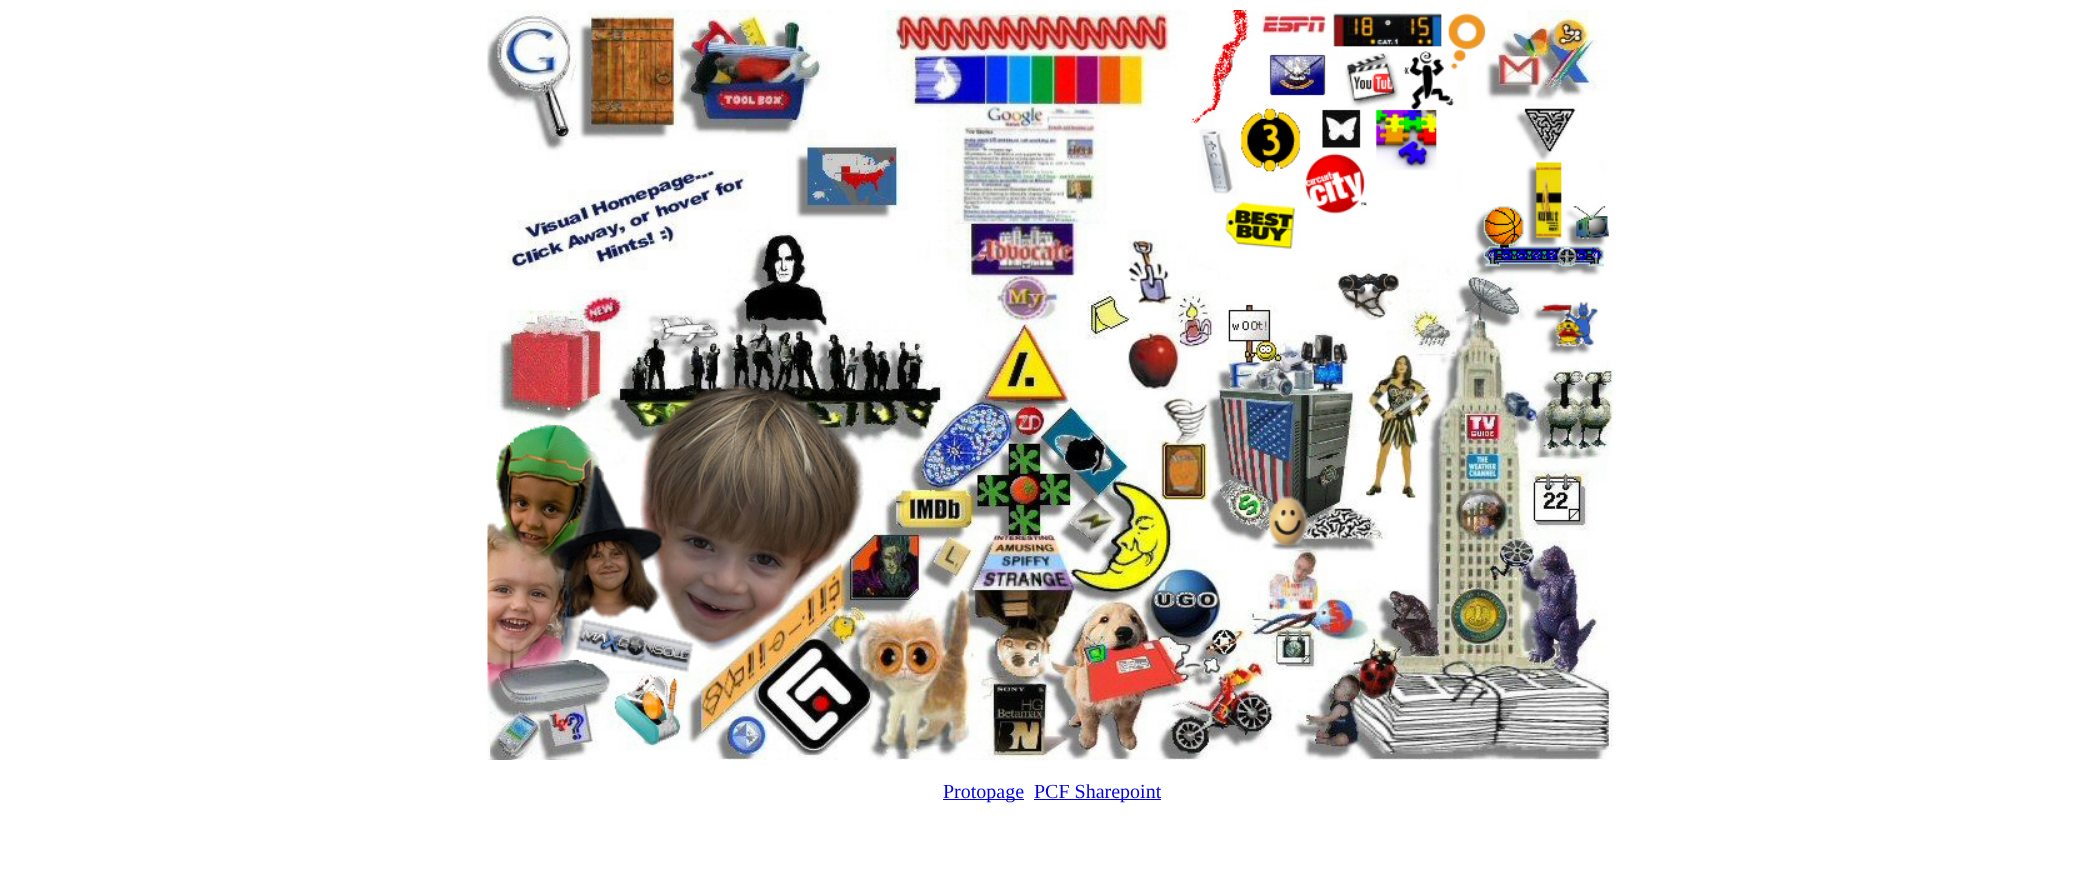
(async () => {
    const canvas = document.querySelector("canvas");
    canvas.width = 2098;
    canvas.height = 895;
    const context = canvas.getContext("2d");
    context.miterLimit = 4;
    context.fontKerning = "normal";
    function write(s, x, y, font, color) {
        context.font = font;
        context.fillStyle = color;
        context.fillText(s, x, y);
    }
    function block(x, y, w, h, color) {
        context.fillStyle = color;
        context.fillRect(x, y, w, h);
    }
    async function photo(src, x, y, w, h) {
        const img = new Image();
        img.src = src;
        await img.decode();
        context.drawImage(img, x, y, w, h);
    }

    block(0, 0, 2098, 895, "rgb(255, 255, 255)");
    await photo("media/1.png", 487, 10, 1126, 750);
    block(943, 799, 81, 1, "rgb(0, 0, 238)");
    write("Protopage", 943, 798, "20px Liberation Serif", "rgb(0, 0, 238)");
    block(1034, 799, 127, 1, "rgb(0, 0, 238)");
    write("PCF Sharepoint", 1034, 798, "20px Liberation Serif", "rgb(0, 0, 238)");
})();
